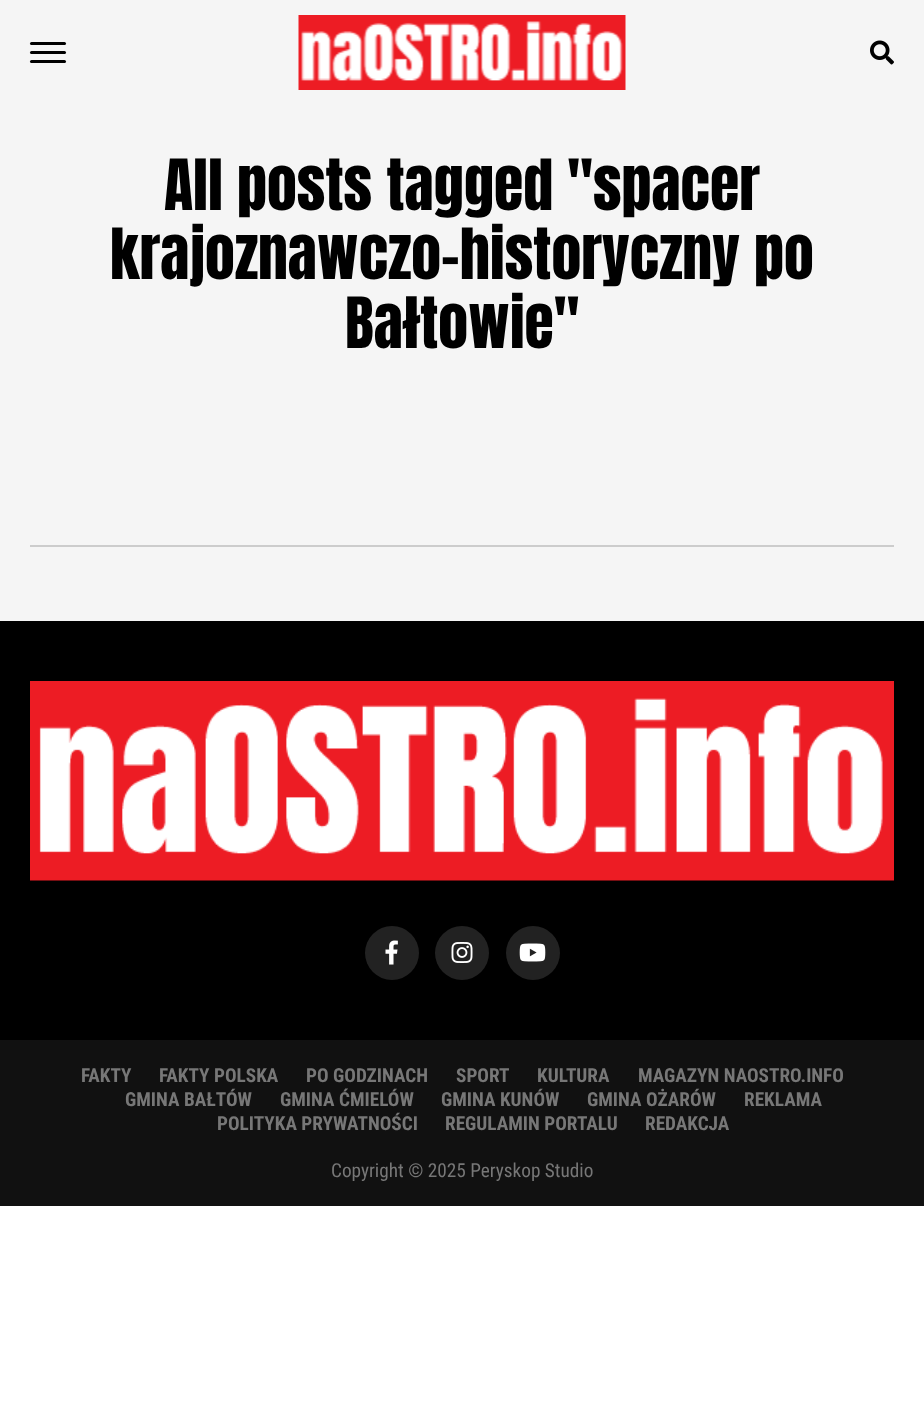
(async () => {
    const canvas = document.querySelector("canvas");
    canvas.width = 924;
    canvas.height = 1405;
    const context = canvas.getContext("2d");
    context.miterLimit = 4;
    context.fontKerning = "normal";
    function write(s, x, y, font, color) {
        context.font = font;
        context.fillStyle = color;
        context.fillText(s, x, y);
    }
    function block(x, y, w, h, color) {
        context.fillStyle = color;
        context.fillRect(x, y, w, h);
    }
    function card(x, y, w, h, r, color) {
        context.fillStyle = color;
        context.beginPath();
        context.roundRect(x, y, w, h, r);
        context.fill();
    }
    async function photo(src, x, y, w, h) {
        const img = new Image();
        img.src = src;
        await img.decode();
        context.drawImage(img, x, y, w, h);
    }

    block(0, 0, 924, 1405, "rgb(255, 255, 255)");
    block(0, 0, 924, 621, "rgb(245, 245, 245)");
    card(30, 42, 36, 3, 1.5, "rgb(0, 0, 0)");
    card(30, 51, 36, 3, 1.5, "rgb(0, 0, 0)");
    card(30, 60, 36, 3, 1.5, "rgb(0, 0, 0)");
    await photo("media/1.png", 298, 15, 328, 75);
    await photo("media/2.png", 870, 40, 24, 25);
    write("All posts tagged \"spacer", 164, 210, "60px Anton", "rgb(0, 0, 0)");
    write("krajoznawczo-historyczny po", 110, 279, "60px Anton", "rgb(0, 0, 0)");
    write("Bałtowie\"", 345, 348, "60px Anton", "rgb(0, 0, 0)");
    block(30, 545, 864, 2, "rgb(204, 204, 204)");
    block(0, 621, 924, 419, "rgb(0, 0, 0)");
    await photo("media/3.png", 30, 681, 864, 200);
    context.fillStyle = "rgb(34, 34, 34)";
    context.beginPath();
    context.arc(392, 953, 27, 0, Math.PI * 2);
    context.fill();
    await photo("media/4.png", 385, 940, 13, 25);
    context.beginPath();
    context.arc(462, 953, 27, 0, Math.PI * 2);
    context.fill();
    await photo("media/5.png", 451, 942, 22, 21);
    context.beginPath();
    context.arc(533, 953, 27, 0, Math.PI * 2);
    context.fill();
    await photo("media/6.png", 519, 943, 27, 19);
    block(0, 1040, 924, 166, "rgb(17, 17, 17)");
    write("FAKTY", 81, 1082, "bold 19.25px Roboto Condensed", "rgb(119, 119, 119)");
    write("FAKTY POLSKA", 159, 1082, "bold 19.25px Roboto Condensed", "rgb(119, 119, 119)");
    write("PO GODZINACH", 306, 1082, "bold 19.25px Roboto Condensed", "rgb(119, 119, 119)");
    write("SPORT", 456, 1082, "bold 19.25px Roboto Condensed", "rgb(119, 119, 119)");
    write("KULTURA", 537, 1082, "bold 19.25px Roboto Condensed", "rgb(119, 119, 119)");
    write("MAGAZYN NAOSTRO.INFO", 638, 1082, "bold 19.25px Roboto Condensed", "rgb(119, 119, 119)");
    write("GMINA BAŁTÓW", 125, 1106, "bold 19.25px Roboto Condensed", "rgb(119, 119, 119)");
    write("GMINA ĆMIELÓW", 280, 1106, "bold 19.25px Roboto Condensed", "rgb(119, 119, 119)");
    write("GMINA KUNÓW", 441, 1106, "bold 19.25px Roboto Condensed", "rgb(119, 119, 119)");
    write("GMINA OŻARÓW", 587, 1106, "bold 19.25px Roboto Condensed", "rgb(119, 119, 119)");
    write("REKLAMA", 744, 1106, "bold 19.25px Roboto Condensed", "rgb(119, 119, 119)");
    write("POLITYKA PRYWATNOŚCI", 217, 1130, "bold 19.25px Roboto Condensed", "rgb(119, 119, 119)");
    write("REGULAMIN PORTALU", 445, 1130, "bold 19.25px Roboto Condensed", "rgb(119, 119, 119)");
    write("REDAKCJA", 645, 1130, "bold 19.25px Roboto Condensed", "rgb(119, 119, 119)");
    write("Copyright © 2025 Peryskop Studio", 331, 1177, "19.25px Roboto Condensed", "rgb(119, 119, 119)");
})();
